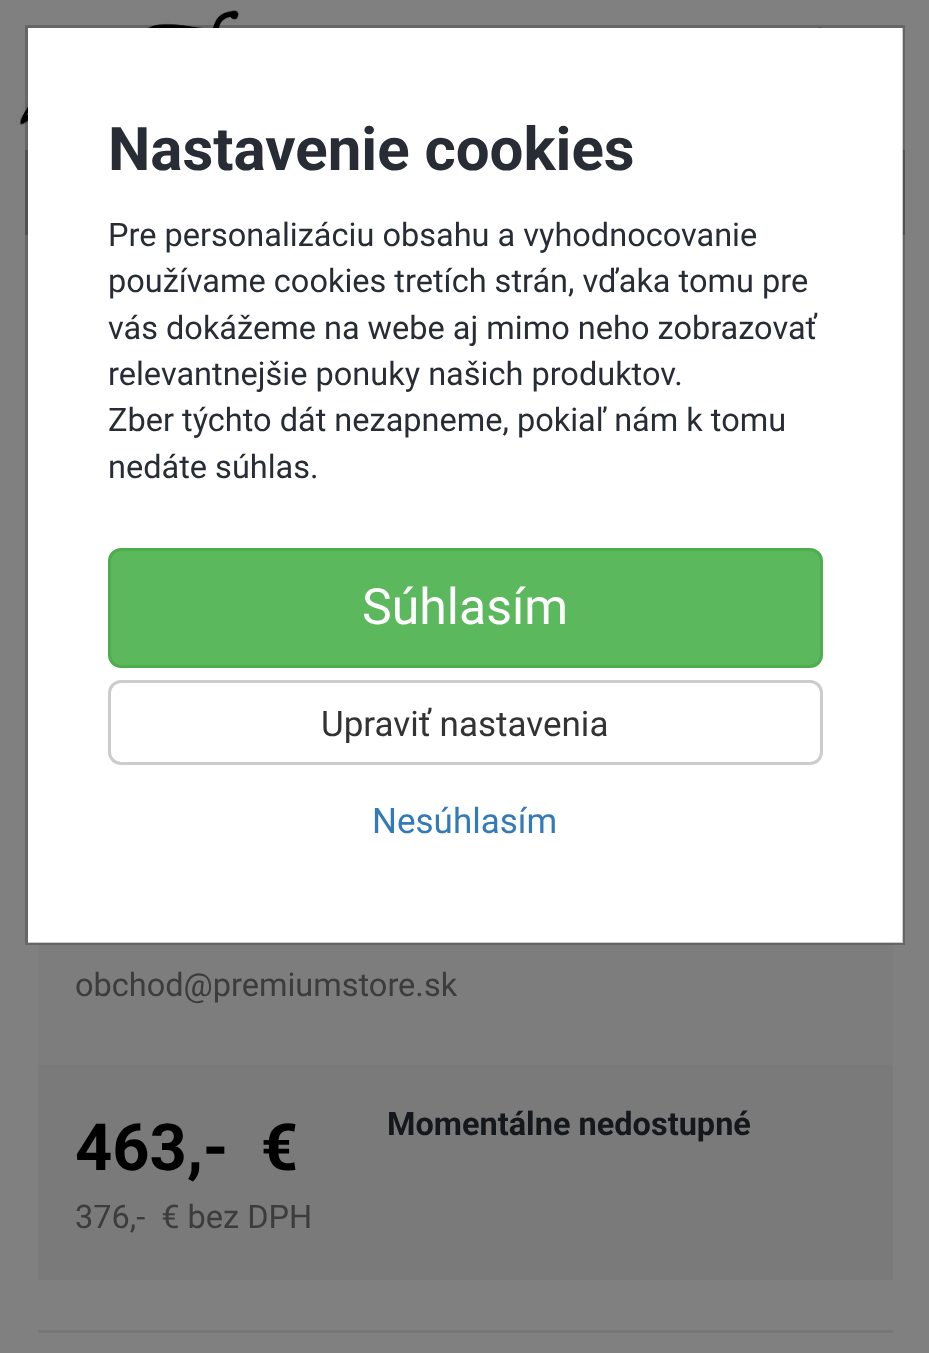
(async () => {
    const canvas = document.querySelector("canvas");
    canvas.width = 929;
    canvas.height = 1353;
    const context = canvas.getContext("2d");
    context.miterLimit = 4;
    context.fontKerning = "normal";
    function write(s, x, y, font, color) {
        context.font = font;
        context.fillStyle = color;
        context.fillText(s, x, y);
    }
    function block(x, y, w, h, color) {
        context.fillStyle = color;
        context.fillRect(x, y, w, h);
    }
    async function photo(src, x, y, w, h) {
        const img = new Image();
        img.src = src;
        await img.decode();
        context.drawImage(img, x, y, w, h);
    }

    block(0, 0, 929, 1353, "rgb(128, 128, 128)");
    await photo("media/1.png", 15, 10, 320, 115);
    context.fillStyle = "rgb(27, 96, 73)";
    context.beginPath();
    context.ellipse(820, 47.5, 15, 20, 0, 0, Math.PI * 2);
    context.fill();
    context.strokeStyle = "rgb(102, 102, 102)";
    context.lineWidth = 3;
    context.strokeRect(26.5, 151.5, 745, 82);
    context.strokeRect(774.5, 151.5, 129, 82);
    block(28, 28, 875, 915, "rgb(255, 255, 255)");
    block(38, 943, 855, 122, "rgb(125, 125, 125)");
    context.strokeStyle = "rgba(0, 0, 0, 0.2)";
    context.strokeRect(26.5, 26.5, 877, 917);
    write("Nastavenie cookies", 108, 170, "bold 60px Roboto", "rgb(40, 45, 53)");
    write("Pre personalizáciu obsahu a vyhodnocovanie", 108, 246, "32.5px Roboto", "rgb(40, 45, 53)");
    write("používame cookies tretích strán, vďaka tomu pre", 108, 292, "32.5px Roboto", "rgb(40, 45, 53)");
    write("vás dokážeme na webe aj mimo neho zobrazovať", 108, 339, "32.5px Roboto", "rgb(40, 45, 53)");
    write("relevantnejšie ponuky našich produktov.", 108, 385, "32.5px Roboto", "rgb(40, 45, 53)");
    write("Zber týchto dát nezapneme, pokiaľ nám k tomu", 108, 431, "32.5px Roboto", "rgb(40, 45, 53)");
    write("nedáte súhlas.", 108, 478, "32.5px Roboto", "rgb(40, 45, 53)");
    context.fillStyle = "rgb(92, 184, 92)";
    context.beginPath();
    context.roundRect(109.5, 549.5, 712, 117, 11.5);
    context.fill();
    context.strokeStyle = "rgb(76, 174, 76)";
    context.stroke();
    write("Súhlasím", 362, 624, "50px Roboto", "rgb(255, 255, 255)");
    context.beginPath();
    context.roundRect(109.5, 681.5, 712, 82, 11.5);
    context.strokeStyle = "rgb(204, 204, 204)";
    context.stroke();
    write("Upraviť nastavenia", 321, 736, "35px Roboto", "rgb(51, 51, 51)");
    write("Nesúhlasím", 372, 833, "35px Roboto", "rgb(51, 122, 183)");
    write("obchod@premiumstore.sk", 75, 996, "32.5px Roboto", "rgb(60, 60, 60)");
    block(38, 1065, 855, 215, "rgb(122, 122, 122)");
    write("463,-  €", 75, 1170, "bold 65px Roboto", "rgb(0, 0, 0)");
    write("376,-  € bez DPH", 75, 1228, "32.5px Roboto", "rgb(60, 60, 60)");
    write("Momentálne nedostupné", 387, 1135, "bold 32.5px Roboto", "rgb(20, 23, 27)");
    block(38, 1330, 855, 3, "rgb(119, 119, 119)");
})();
